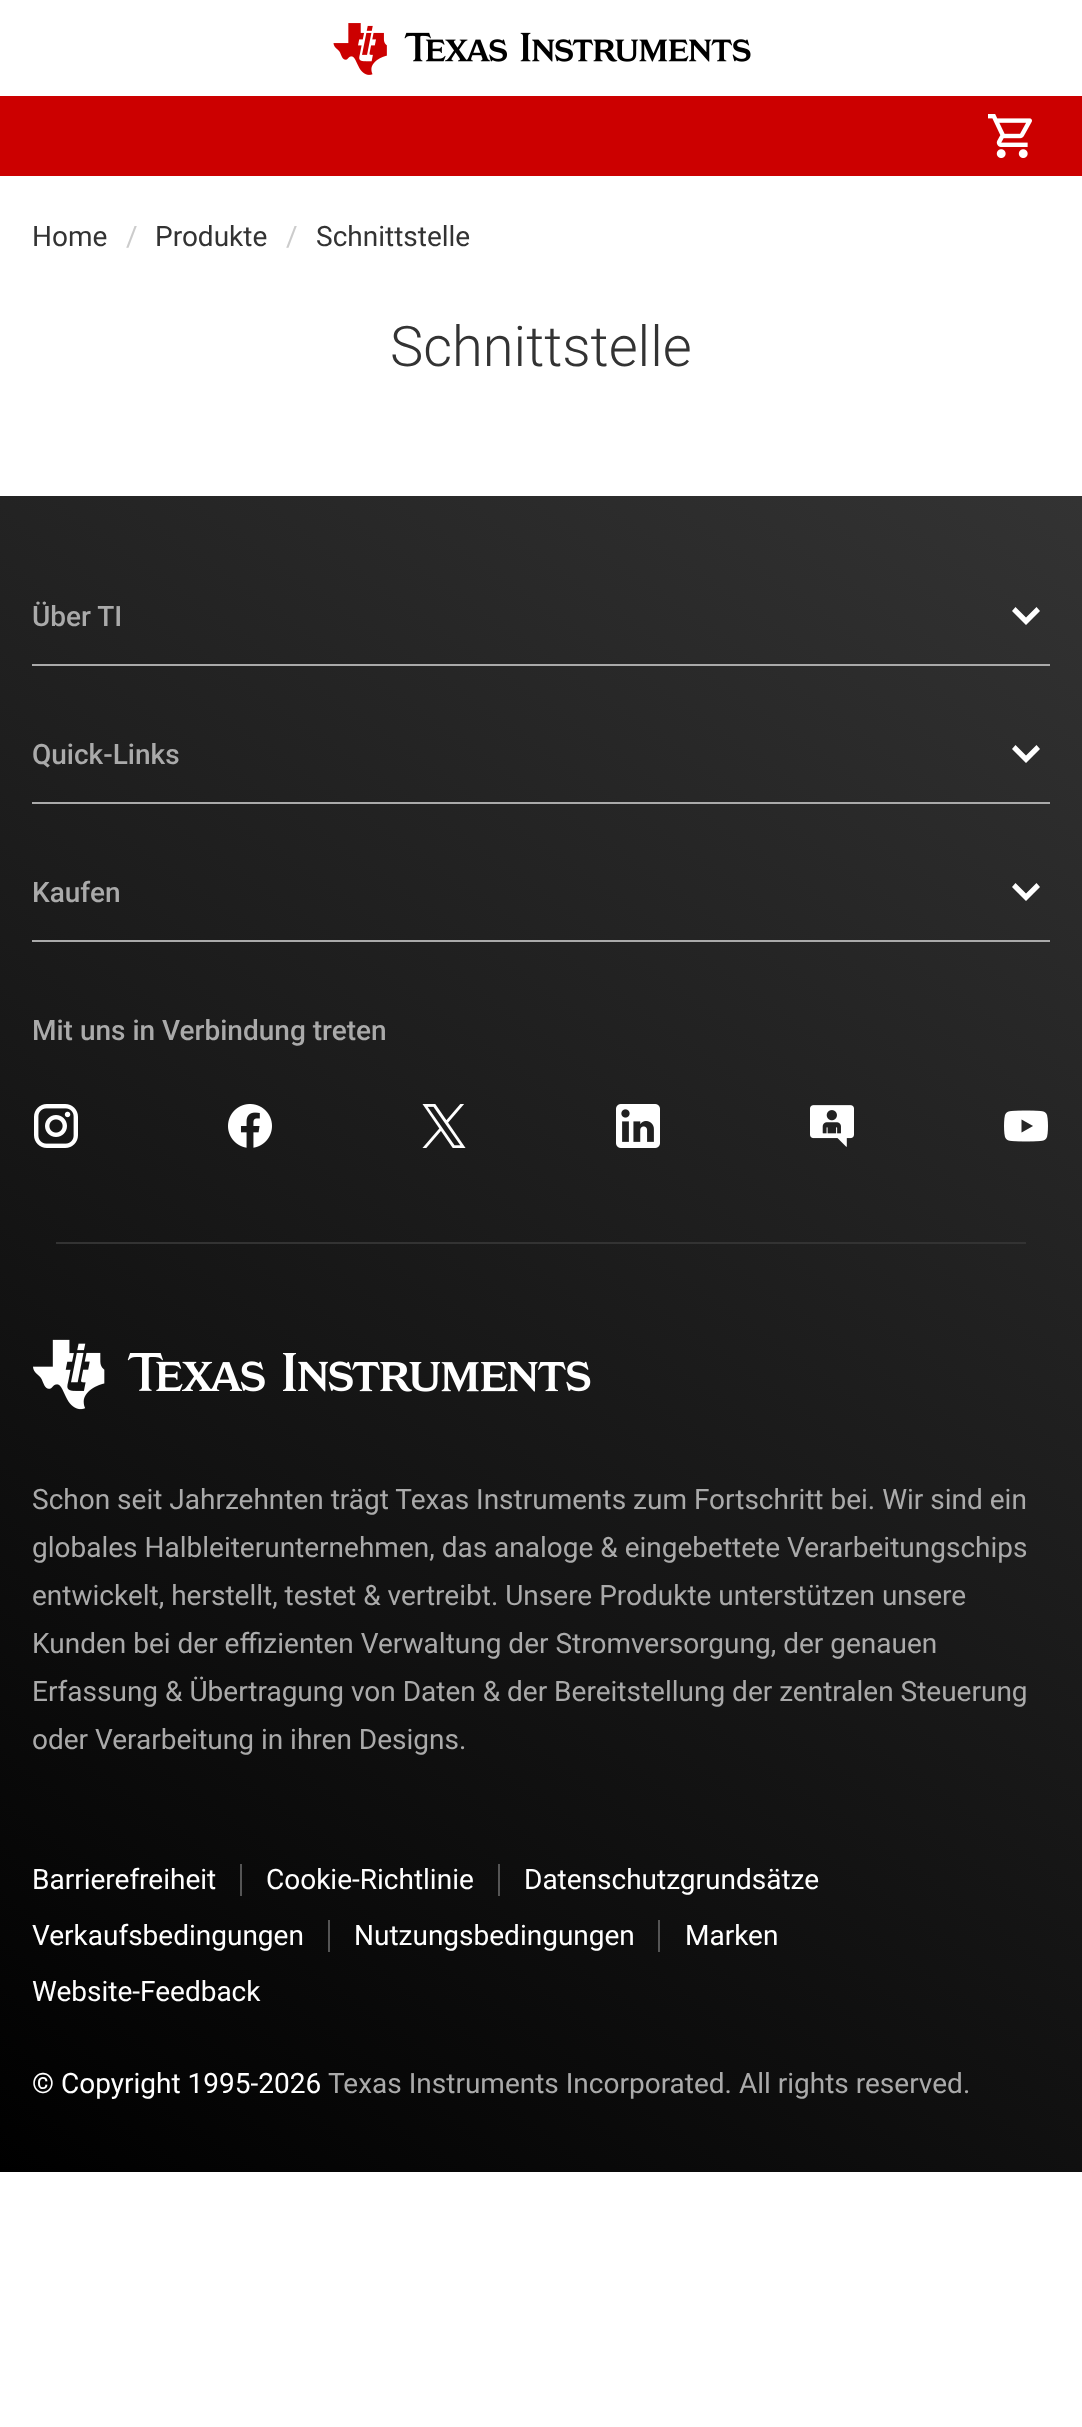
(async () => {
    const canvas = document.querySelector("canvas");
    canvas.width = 1082;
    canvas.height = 2427;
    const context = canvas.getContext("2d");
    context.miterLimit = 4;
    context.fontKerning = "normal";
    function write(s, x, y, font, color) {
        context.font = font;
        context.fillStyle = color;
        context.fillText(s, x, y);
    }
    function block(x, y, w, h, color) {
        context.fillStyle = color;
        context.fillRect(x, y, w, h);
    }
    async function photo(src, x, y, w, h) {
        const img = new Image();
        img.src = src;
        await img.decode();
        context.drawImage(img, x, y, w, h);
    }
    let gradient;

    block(0, 0, 1082, 2427, "rgb(255, 255, 255)");
    await photo("media/1.png", 333, 23, 418, 52);
    block(0, 96, 1082, 80, "rgb(204, 0, 0)");
    await photo("media/2.png", 988, 114, 44, 44);
    write("Home", 32, 246, "28px Roboto", "rgb(51, 51, 51)");
    write("/", 126, 246, "28px Roboto", "rgb(204, 204, 204)");
    write("Produkte", 155, 246, "28px Roboto", "rgb(51, 51, 51)");
    write("/", 286, 246, "28px Roboto", "rgb(204, 204, 204)");
    write("Schnittstelle", 316, 246, "28px Roboto", "rgb(51, 51, 51)");
    write("Schnittstelle", 390, 366, "300 56px Roboto", "rgb(51, 51, 51)");
    gradient = context.createLinearGradient(-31, 2150, 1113, 518);
    gradient.addColorStop(0, "rgb(0, 0, 0)");
    gradient.addColorStop(1, "rgb(51, 51, 51)");
    context.fillStyle = gradient;
    context.fillRect(0, 496, 1082, 1676);
    block(32, 664, 1018, 2, "rgb(170, 170, 170)");
    write("Über TI", 32, 626, "500 28px Roboto", "rgb(170, 170, 170)");
    context.fillStyle = "rgb(255, 255, 255)";
    context.beginPath();
    context.moveTo(1040, 611);
    context.lineTo(1026, 625);
    context.lineTo(1012, 611);
    context.lineTo(1015.5, 607);
    context.lineTo(1026, 617.5);
    context.lineTo(1036.5, 607);
    context.closePath();
    context.fill();
    block(32, 802, 1018, 2, "rgb(170, 170, 170)");
    write("Quick-Links", 32, 764, "500 28px Roboto", "rgb(170, 170, 170)");
    context.fillStyle = "rgb(255, 255, 255)";
    context.beginPath();
    context.moveTo(1040, 749);
    context.lineTo(1026, 763);
    context.lineTo(1012, 749);
    context.lineTo(1015.5, 745);
    context.lineTo(1026, 755.5);
    context.lineTo(1036.5, 745);
    context.closePath();
    context.fill();
    block(32, 940, 1018, 2, "rgb(170, 170, 170)");
    write("Kaufen", 32, 902, "500 28px Roboto", "rgb(170, 170, 170)");
    context.fillStyle = "rgb(255, 255, 255)";
    context.beginPath();
    context.moveTo(1040, 887);
    context.lineTo(1026, 901);
    context.lineTo(1012, 887);
    context.lineTo(1015.5, 883);
    context.lineTo(1026, 893.5);
    context.lineTo(1036.5, 883);
    context.closePath();
    context.fill();
    write("Mit uns in Verbindung treten", 32, 1040, "500 28px Roboto", "rgb(170, 170, 170)");
    await photo("media/3.png", 34, 1104, 44, 44);
    await photo("media/4.png", 228, 1104, 44, 44);
    await photo("media/5.png", 422, 1104, 44, 44);
    await photo("media/6.png", 616, 1104, 44, 44);
    await photo("media/7.png", 810, 1105, 44, 42);
    await photo("media/8.png", 1004, 1110, 44, 32);
    block(56, 1242, 970, 2, "rgb(51, 51, 51)");
    await photo("media/9.png", 33, 1339, 558, 71);
    write("Schon seit Jahrzehnten trägt Texas Instruments zum Fortschritt bei. Wir sind ein", 32, 1509, "28px Roboto", "rgb(170, 170, 170)");
    write("globales Halbleiterunternehmen, das analoge & eingebettete Verarbeitungschips", 32, 1557, "28px Roboto", "rgb(170, 170, 170)");
    write("entwickelt, herstellt, testet & vertreibt. Unsere Produkte unterstützen unsere", 32, 1605, "28px Roboto", "rgb(170, 170, 170)");
    write("Kunden bei der effizienten Verwaltung der Stromversorgung, der genauen", 32, 1653, "28px Roboto", "rgb(170, 170, 170)");
    write("Erfassung & Übertragung von Daten & der Bereitstellung der zentralen Steuerung", 32, 1701, "28px Roboto", "rgb(170, 170, 170)");
    write("oder Verarbeitung in ihren Designs.", 32, 1749, "28px Roboto", "rgb(170, 170, 170)");
    write("Barrierefreiheit", 32, 1889, "28px Roboto", "rgb(255, 255, 255)");
    write("Cookie-Richtlinie", 266, 1889, "28px Roboto", "rgb(255, 255, 255)");
    block(240, 1864, 2, 32, "rgb(85, 85, 85)");
    write("Datenschutzgrundsätze", 524, 1889, "28px Roboto", "rgb(255, 255, 255)");
    block(498, 1864, 2, 32, "rgb(85, 85, 85)");
    write("Verkaufsbedingungen", 32, 1945, "28px Roboto", "rgb(255, 255, 255)");
    write("Nutzungsbedingungen", 354, 1945, "28px Roboto", "rgb(255, 255, 255)");
    block(328, 1920, 2, 32, "rgb(85, 85, 85)");
    write("Marken", 685, 1945, "28px Roboto", "rgb(255, 255, 255)");
    block(658, 1920, 2, 32, "rgb(85, 85, 85)");
    write("Website-Feedback", 32, 2001, "28px Roboto", "rgb(255, 255, 255)");
    write("© Copyright 1995-2026", 32, 2093, "28px Roboto", "rgb(255, 255, 255)");
    write("Texas Instruments Incorporated. All rights reserved.", 328, 2093, "28px Roboto", "rgb(170, 170, 170)");
})();
